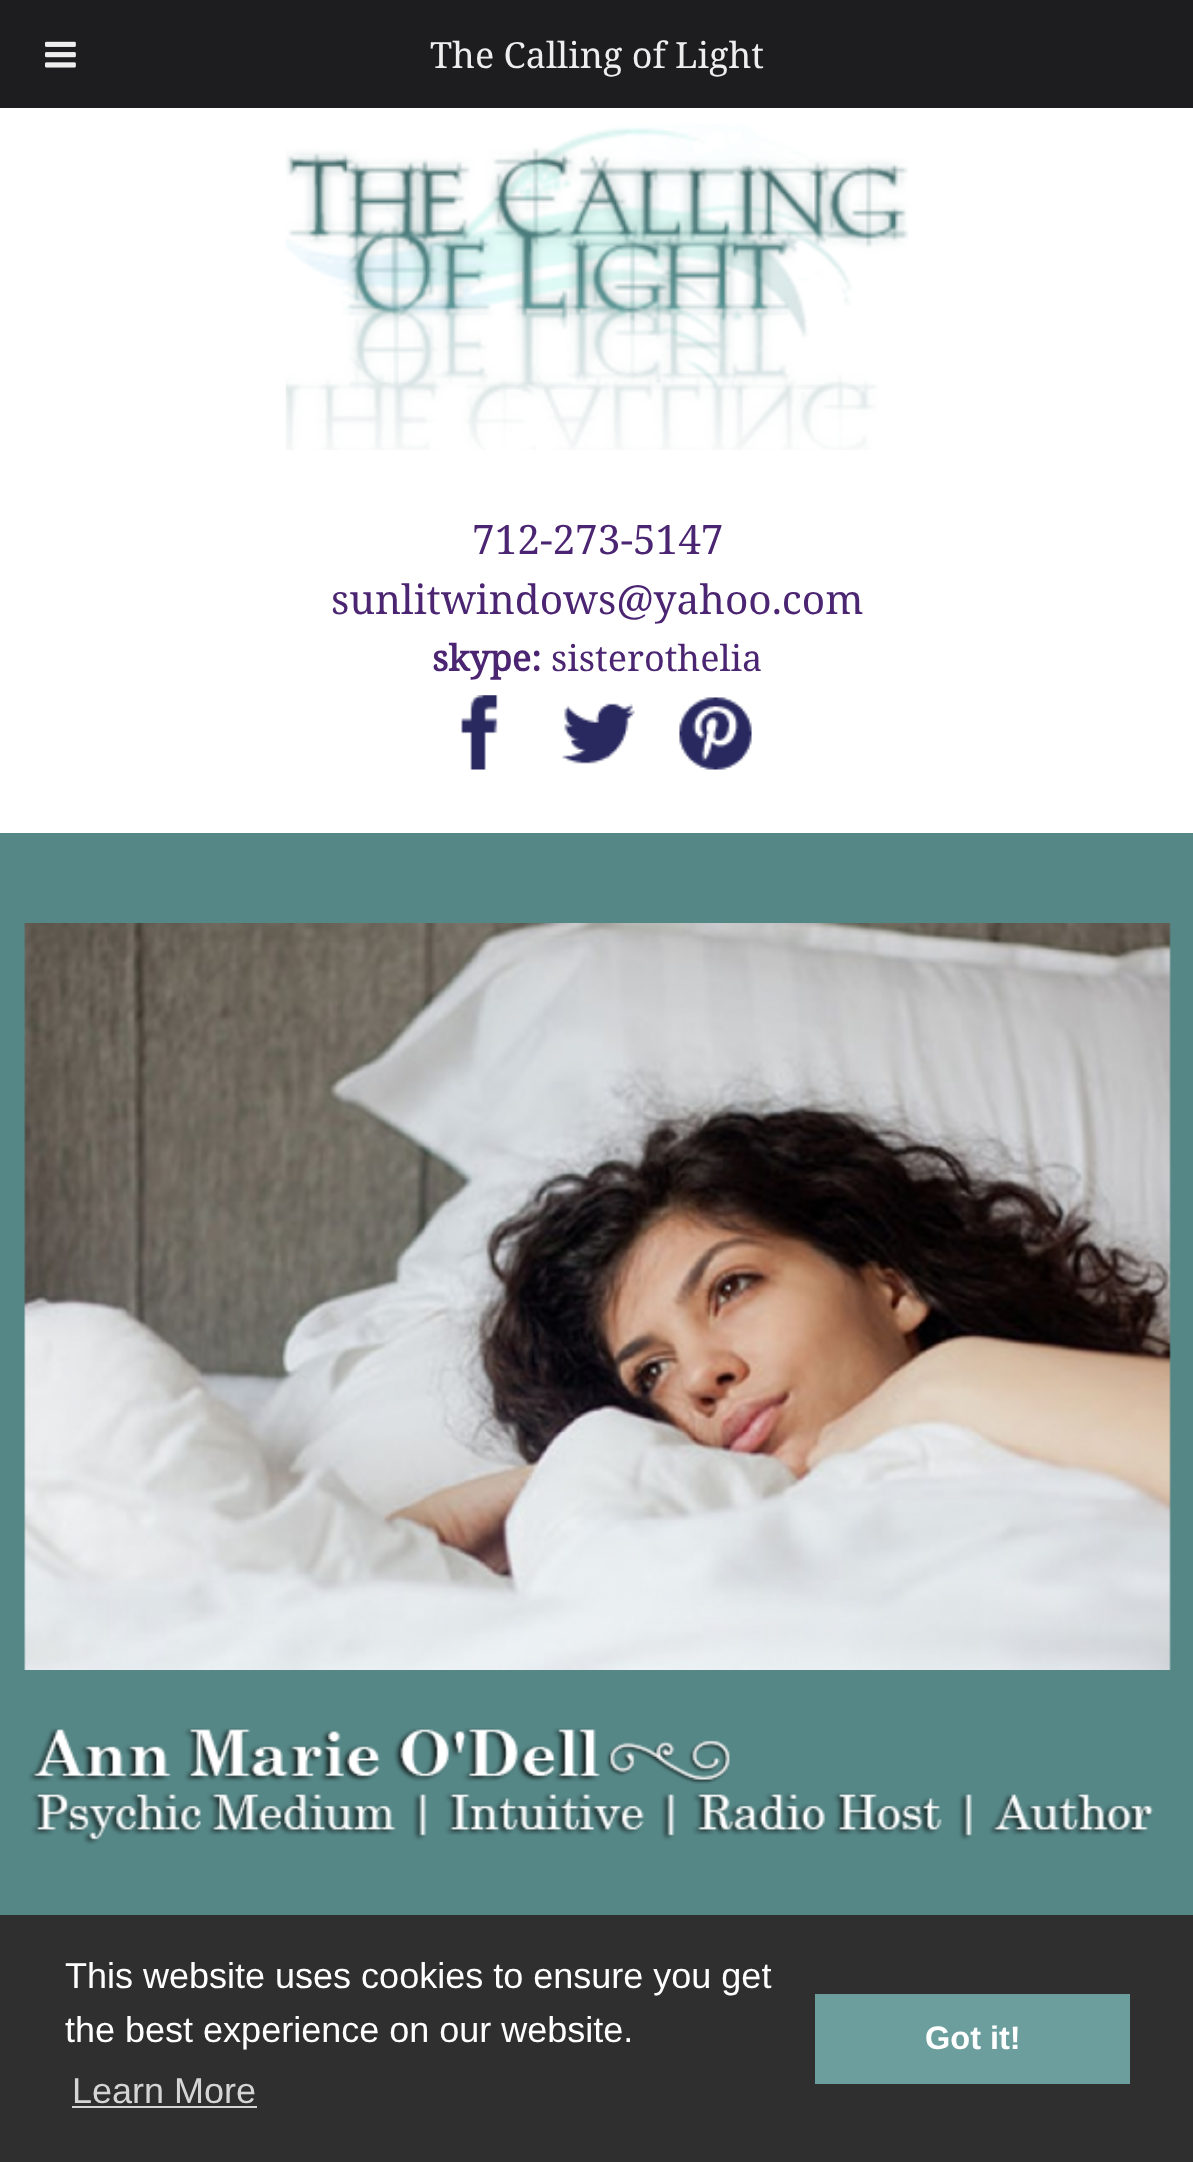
(async () => {
    const canvas = document.querySelector("canvas");
    canvas.width = 1193;
    canvas.height = 2162;
    const context = canvas.getContext("2d");
    context.miterLimit = 4;
    context.fontKerning = "normal";
    function write(s, x, y, font, color) {
        context.font = font;
        context.fillStyle = color;
        context.fillText(s, x, y);
    }
    function block(x, y, w, h, color) {
        context.fillStyle = color;
        context.fillRect(x, y, w, h);
    }
    async function photo(src, x, y, w, h) {
        const img = new Image();
        img.src = src;
        await img.decode();
        context.drawImage(img, x, y, w, h);
    }

    block(0, 0, 1193, 2162, "rgb(255, 255, 255)");
    block(0, 0, 1193, 108, "rgb(29, 29, 32)");
    await photo("media/1.png", 45, 41, 31, 27);
    write("The Calling of Light", 430, 68, "36px Noto Serif", "rgb(238, 238, 238)");
    await photo("media/2.png", 285, 124, 624, 326);
    write("712-273-5147", 472, 554, "40.5px Noto Serif", "rgb(75, 37, 114)");
    write("sunlitwindows@yahoo.com", 331, 614, "40.5px Noto Serif", "rgb(75, 37, 114)");
    write("skype:", 432, 671, "bold 36px Noto Serif", "rgb(75, 37, 114)");
    write("sisterothelia", 551, 671, "36px Noto Serif", "rgb(75, 37, 114)");
    await photo("media/3.png", 461, 695, 37, 75);
    await photo("media/4.png", 562, 703, 73, 61);
    await photo("media/5.png", 679, 697, 73, 73);
    block(0, 833, 1193, 1082, "rgb(86, 135, 135)");
    await photo("media/6.png", 24, 923, 1147, 747);
    await photo("media/7.png", 28, 1728, 1126, 117);
    block(0, 1915, 1193, 247, "rgb(47, 47, 47)");
    write("This website uses cookies to ensure you get", 65, 1988, "36px Liberation Sans", "rgb(255, 255, 255)");
    write("the best experience on our website.", 65, 2042, "36px Liberation Sans", "rgb(255, 255, 255)");
    write("Learn More", 72, 2103, "36px Liberation Sans", "rgb(213, 213, 213)");
    block(72, 2106, 185, 2, "rgb(213, 213, 213)");
    block(815, 1994, 315, 90, "rgb(108, 158, 158)");
    write("Got it!", 925, 2049, "bold 32.5px Liberation Sans", "rgb(255, 255, 255)");
})();
